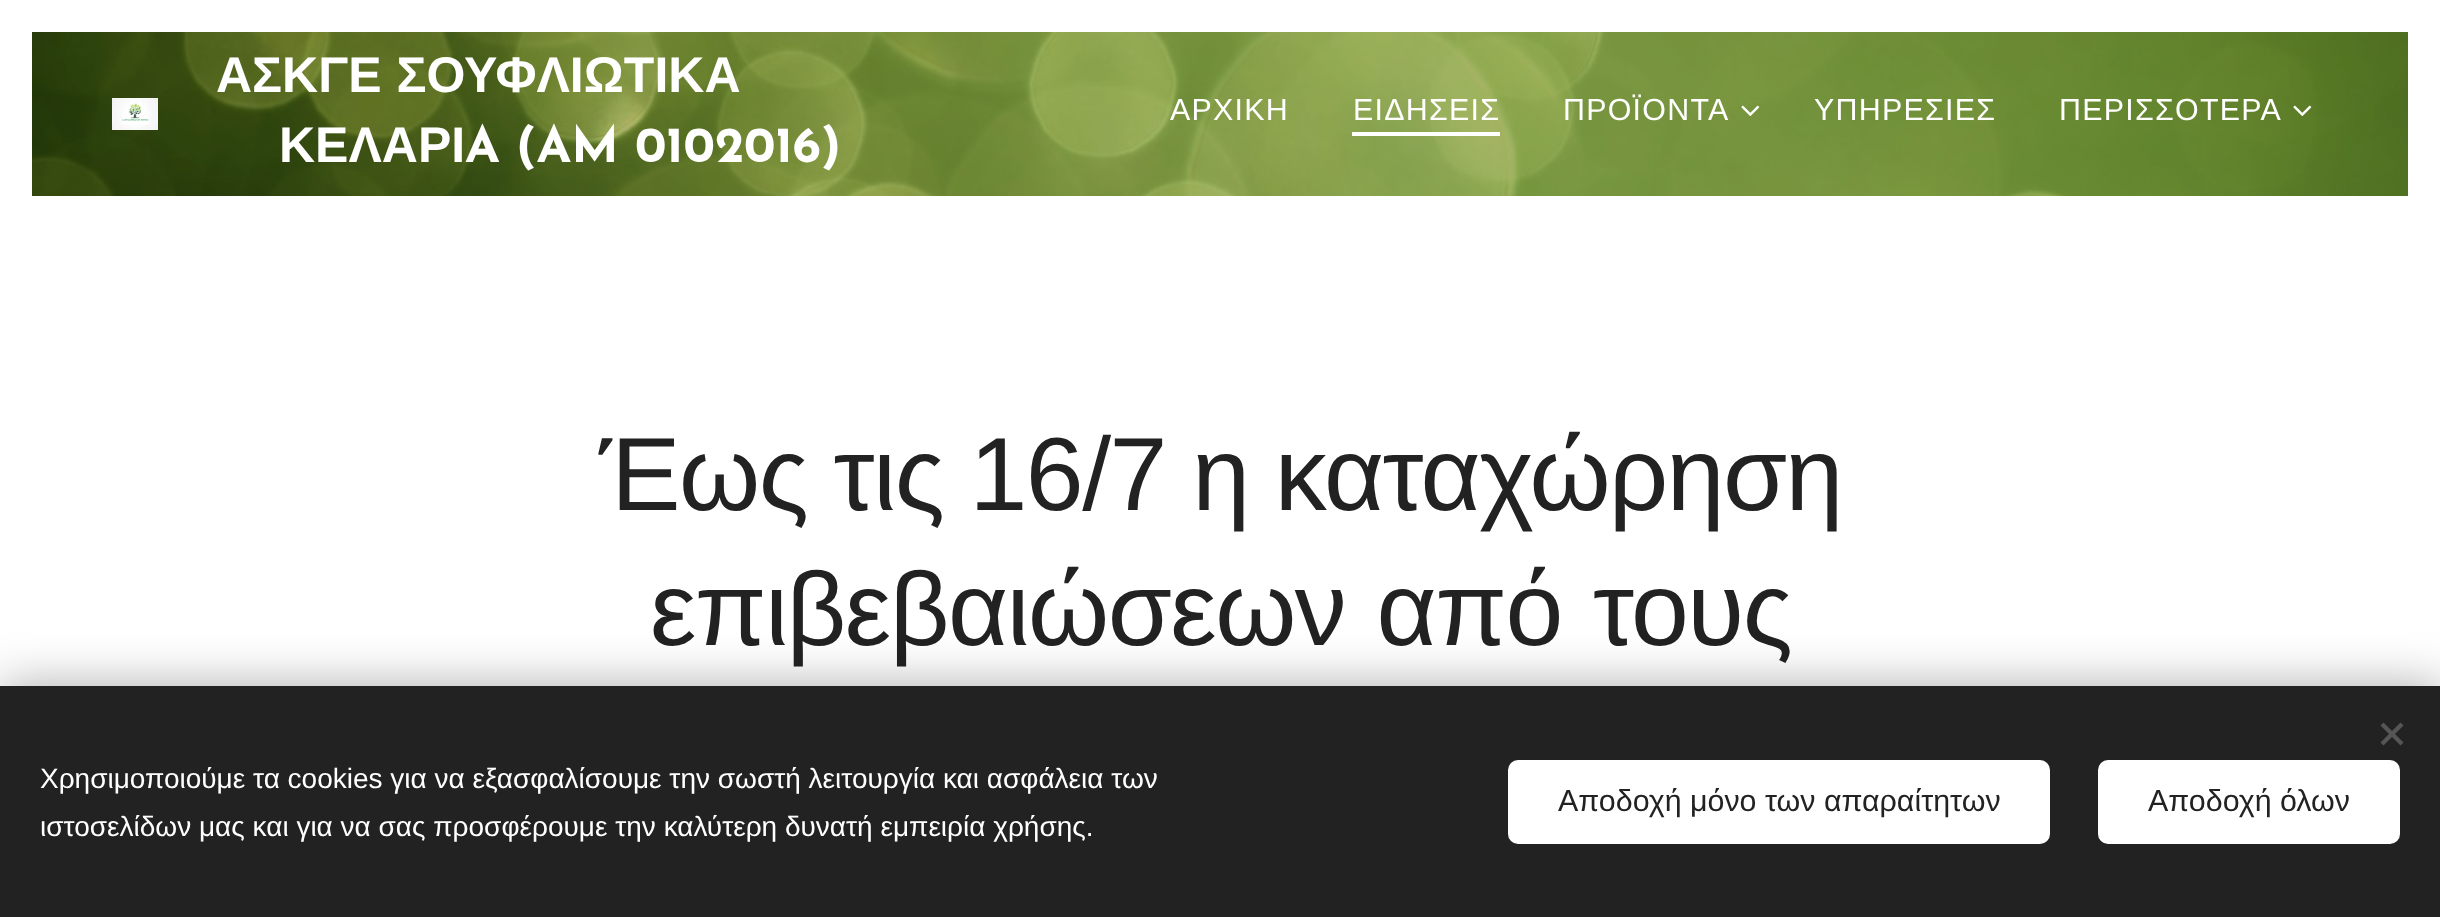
(async () => {
    const canvas = document.querySelector("canvas");
    canvas.width = 2440;
    canvas.height = 917;
    const context = canvas.getContext("2d");
    context.miterLimit = 4;
    context.fontKerning = "normal";
    function write(s, x, y, font, color) {
        context.font = font;
        context.fillStyle = color;
        context.fillText(s, x, y);
    }
    function block(x, y, w, h, color) {
        context.fillStyle = color;
        context.fillRect(x, y, w, h);
    }
    function card(x, y, w, h, r, color) {
        context.fillStyle = color;
        context.beginPath();
        context.roundRect(x, y, w, h, r);
        context.fill();
    }
    async function photo(src, x, y, w, h) {
        const img = new Image();
        img.src = src;
        await img.decode();
        context.drawImage(img, x, y, w, h);
    }

    block(0, 0, 2440, 917, "rgb(255, 255, 255)");
    await photo("media/1.png", 32, 32, 2376, 164);
    await photo("media/2.png", 112, 98, 46, 32);
    context.wordSpacing = "1px";
    write("ΑΣΚΓΕ ΣΟΥΦΛΙΩΤΙΚΑ", 216, 92, "bold 50px Liberation Sans", "rgb(255, 255, 255)");
    context.wordSpacing = "0px";
    write("ΚΕΛΑΡΙ", 279, 162, "bold 50px Liberation Sans", "rgb(255, 255, 255)");
    write("A (AM 0102016)", 465, 162, "bold 50px Josefin Sans", "rgb(255, 255, 255)");
    context.letterSpacing = "1.25px";
    write("ΑΡΧΙΚΗ", 1170, 120, "30.4px Liberation Sans", "rgb(255, 255, 255)");
    write("ΕΙΔΗΣΕΙΣ", 1353, 120, "30.4px Liberation Sans", "rgb(255, 255, 255)");
    block(1352, 132, 148, 4, "rgb(255, 255, 255)");
    write("ΠΡΟΪΟΝΤΑ", 1563, 120, "30.4px Liberation Sans", "rgb(255, 255, 255)");
    await photo("media/3.png", 1741, 105, 19, 11);
    write("ΥΠΗΡΕΣΙΕΣ", 1814, 120, "30.4px Liberation Sans", "rgb(255, 255, 255)");
    write("ΠΕΡΙΣΣΟΤΕΡΑ", 2059, 120, "30.4px Liberation Sans", "rgb(255, 255, 255)");
    await photo("media/4.png", 2293, 105, 19, 11);
    context.letterSpacing = "-1.55px";
    context.wordSpacing = "-1px";
    write("Έως τις 16/7 η καταχώρηση", 599, 510, "104px Liberation Sans", "rgb(34, 34, 34)");
    context.wordSpacing = "4px";
    write("επιβεβαιώσεων από τους", 650, 645, "104px Liberation Sans", "rgb(34, 34, 34)");
    context.fillStyle = "rgba(0, 0, 0, 0.33)";
    context.filter = "blur(25px)";
    context.beginPath();
    context.rect(0, 686, 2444, 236);
    context.fill();
    context.filter = "none";
    block(0, 686, 2440, 231, "rgb(34, 34, 34)");
    context.fillStyle = "rgb(85, 85, 85)";
    context.beginPath();
    context.moveTo(2380.5, 742.5);
    context.lineTo(2400.5, 722.5);
    context.lineTo(2403.5, 725.5);
    context.lineTo(2383.5, 745.5);
    context.closePath();
    context.fill();
    context.beginPath();
    context.moveTo(2383.5, 722.5);
    context.lineTo(2403.5, 742.5);
    context.lineTo(2400.5, 745.5);
    context.lineTo(2380.5, 725.5);
    context.closePath();
    context.fill();
    context.letterSpacing = "0px";
    context.wordSpacing = "0px";
    write("Χρησιμοποιούμε τα cookies για να εξασφαλίσουμε την σωστή λειτουργία και ασφάλεια των", 40, 788, "28px Liberation Sans", "rgb(255, 255, 255)");
    write("ιστοσελίδων μας και για να σας προσφέρουμε την καλύτερη δυνατή εμπειρία χρήσης.", 40, 836, "28px Liberation Sans", "rgb(255, 255, 255)");
    card(1508, 760, 542, 84, 10, "rgb(255, 255, 255)");
    write("Αποδοχή μόνο των απαραίτητων", 1558, 811, "30.4px Liberation Sans", "rgb(34, 34, 34)");
    card(2098, 760, 302, 84, 10, "rgb(255, 255, 255)");
    write("Αποδοχή όλων", 2148, 811, "30.4px Liberation Sans", "rgb(34, 34, 34)");
})();
